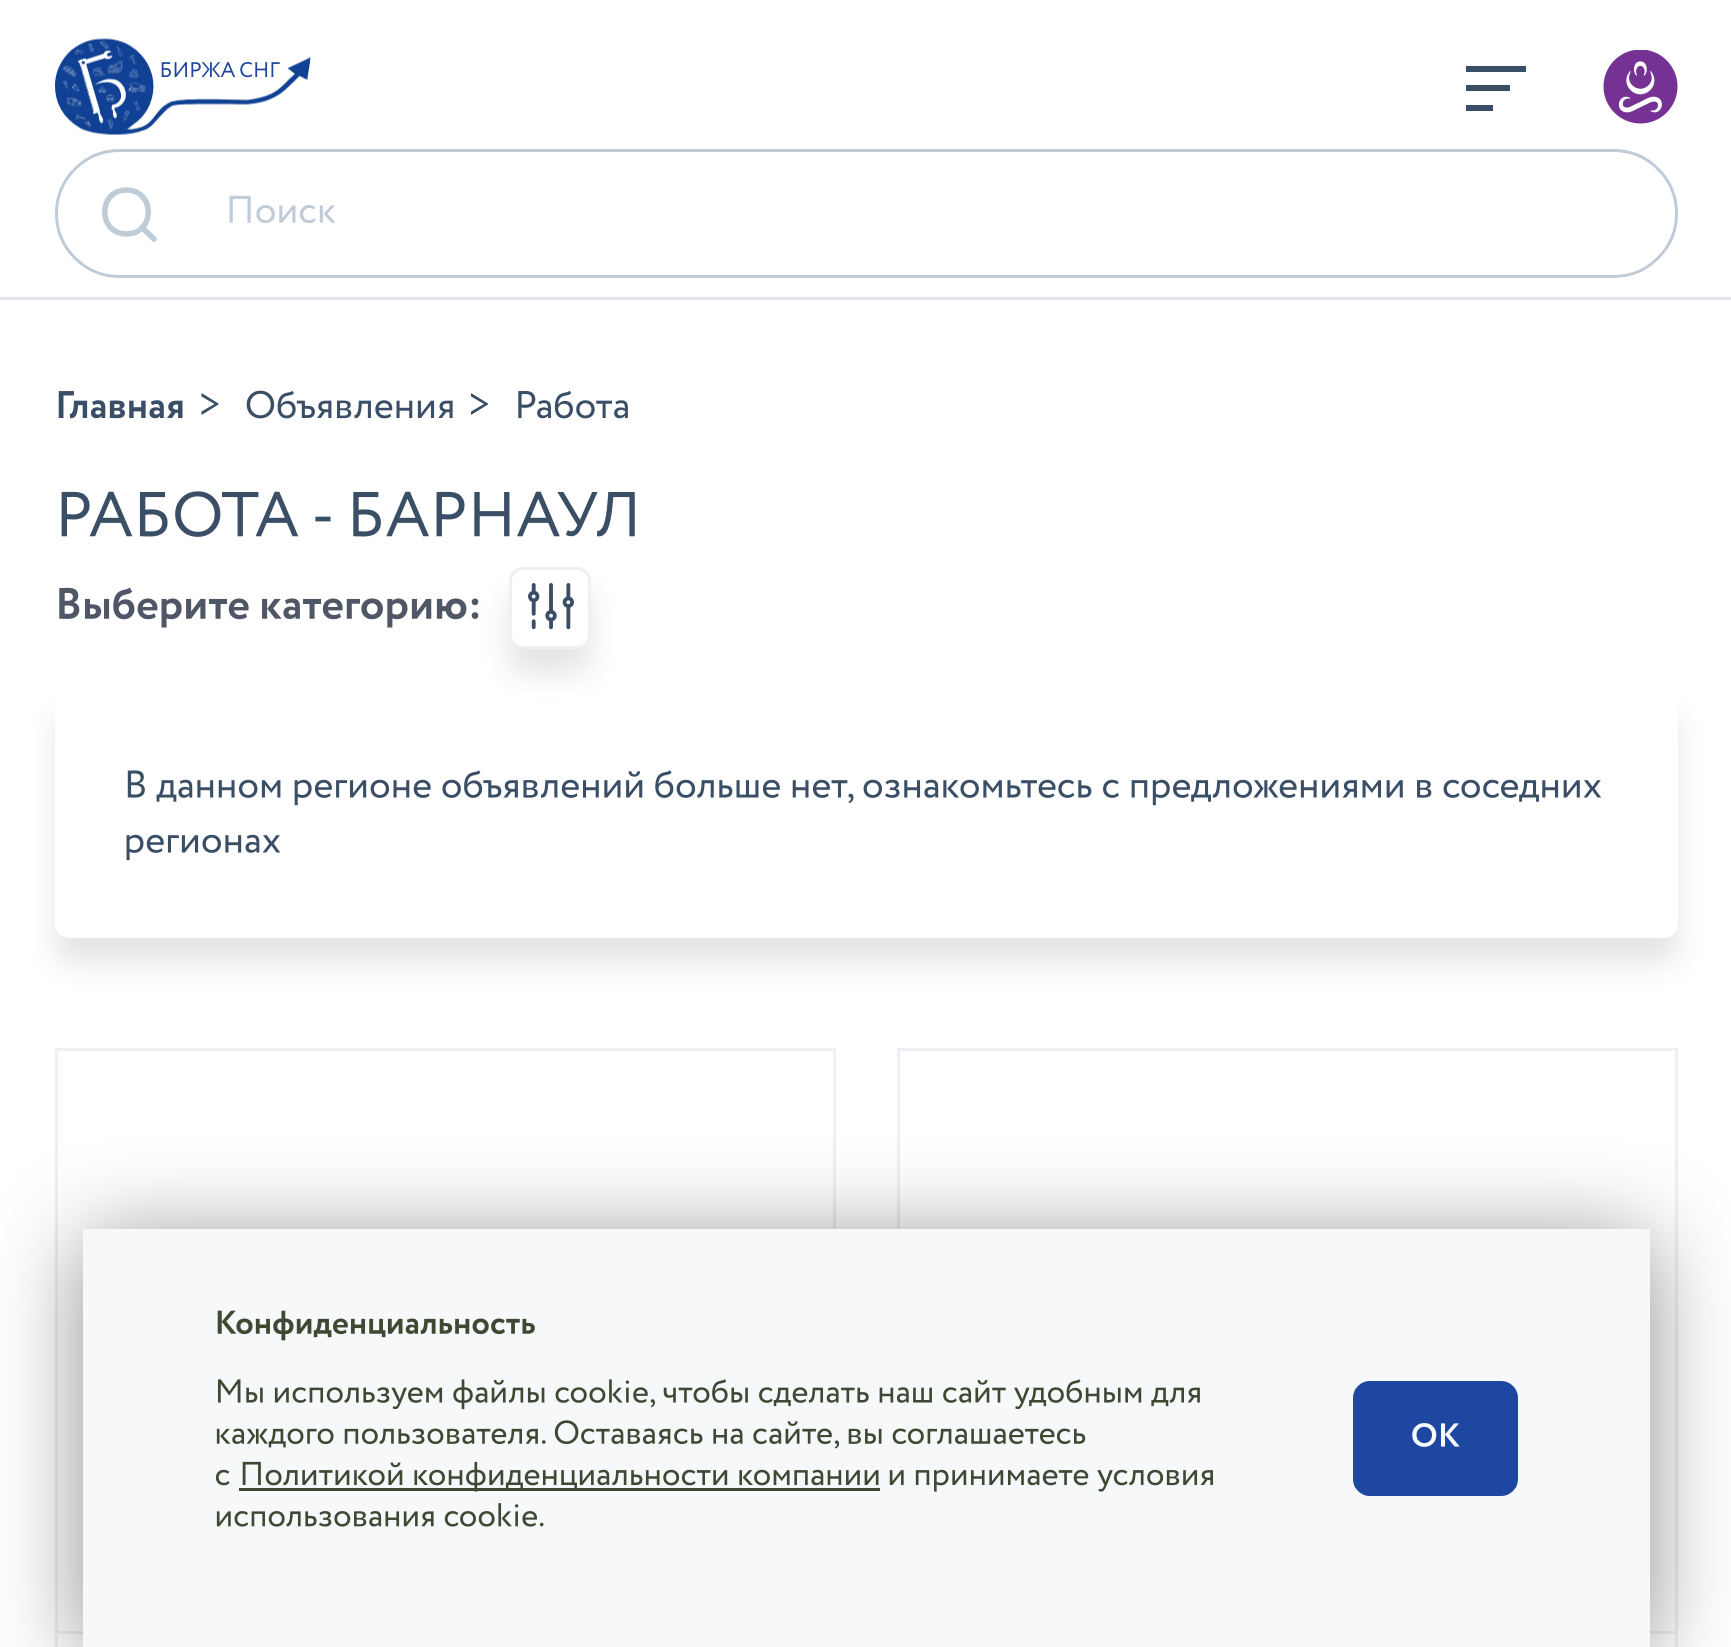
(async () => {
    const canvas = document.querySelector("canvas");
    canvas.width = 1731;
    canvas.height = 1647;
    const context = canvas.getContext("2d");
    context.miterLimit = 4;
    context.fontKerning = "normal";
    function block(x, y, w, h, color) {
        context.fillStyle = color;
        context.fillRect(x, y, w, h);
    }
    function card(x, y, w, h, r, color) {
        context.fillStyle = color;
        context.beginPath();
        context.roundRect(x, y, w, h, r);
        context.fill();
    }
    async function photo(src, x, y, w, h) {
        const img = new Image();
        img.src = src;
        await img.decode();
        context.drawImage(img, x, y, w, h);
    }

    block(0, 0, 1731, 1647, "rgb(255, 255, 255)");
    block(0, 297, 1731, 3, "rgb(224, 229, 236)");
    await photo("media/1.png", 55, 38, 256, 97);
    await photo("media/2.png", 161, 62, 74, 16);
    await photo("media/3.png", 240, 62, 40, 16);
    block(1466, 85, 44, 6, "rgb(58, 78, 102)");
    block(1466, 66, 60, 6, "rgb(58, 78, 102)");
    block(1466, 105, 27, 6, "rgb(58, 78, 102)");
    await photo("media/4.png", 1603, 50, 75, 74);
    context.beginPath();
    context.roundRect(56.5, 150.5, 1620, 126, 63);
    context.strokeStyle = "rgb(192, 203, 216)";
    context.lineWidth = 3;
    context.stroke();
    context.beginPath();
    context.moveTo(126.5, 234);
    context.bezierCurveTo(155.5, 234, 155.5, 190, 126.5, 190);
    context.bezierCurveTo(97.5, 190, 97.5, 234, 126.5, 234);
    context.closePath();
    context.moveTo(154, 239);
    context.lineTo(142, 227.5);
    context.lineWidth = 5.5;
    context.lineCap = "round";
    context.lineJoin = "round";
    context.stroke();
    await photo("media/5.png", 229, 195, 107, 29);
    await photo("media/6.png", 58, 391, 125, 28);
    context.beginPath();
    context.moveTo(218.5, 404.5);
    context.lineTo(201.5, 415);
    context.lineTo(201.5, 411.5);
    context.lineTo(214.5, 404);
    context.lineTo(201.5, 396.5);
    context.lineTo(201.5, 393);
    context.lineTo(218.5, 403.5);
    context.closePath();
    context.fill();
    await photo("media/7.png", 246, 390, 207, 29);
    context.beginPath();
    context.moveTo(488, 404.5);
    context.lineTo(471, 415);
    context.lineTo(471, 411.5);
    context.lineTo(484, 404);
    context.lineTo(471, 396.5);
    context.lineTo(471, 393);
    context.lineTo(488, 403.5);
    context.closePath();
    context.fill();
    await photo("media/8.png", 518, 390, 110, 29);
    await photo("media/9.png", 61, 491, 574, 46);
    await photo("media/10.png", 59, 587, 420, 41);
    context.fillStyle = "rgba(0, 0, 0, 0.1)";
    context.filter = "blur(14px)";
    context.beginPath();
    context.roundRect(509, 591, 82, 83, 14);
    context.fill();
    context.filter = "none";
    card(509, 567, 82, 82, 14, "rgb(255, 255, 255)");
    await photo("media/11.png", 528, 583, 46, 47);
    context.beginPath();
    context.roundRect(510.5, 568.5, 79, 79, 12.5);
    context.strokeStyle = "rgba(192, 203, 216, 0.28)";
    context.lineWidth = 3;
    context.lineJoin = "miter";
    context.stroke();
    context.save();
    context.beginPath();
    context.moveTo(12, 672);
    context.lineTo(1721, 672);
    context.lineTo(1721, 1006);
    context.lineTo(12, 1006);
    context.closePath();
    context.moveTo(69, 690);
    context.lineTo(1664, 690);
    context.bezierCurveTo(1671.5, 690, 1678, 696.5, 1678, 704);
    context.lineTo(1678, 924);
    context.bezierCurveTo(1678, 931.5, 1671.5, 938, 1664, 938);
    context.lineTo(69, 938);
    context.bezierCurveTo(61.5, 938, 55, 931.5, 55, 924);
    context.lineTo(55, 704);
    context.bezierCurveTo(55, 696.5, 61.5, 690, 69, 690);
    context.closePath();
    context.clip("evenodd");
    context.fillStyle = "rgba(0, 0, 0, 0.1)";
    context.filter = "blur(14px)";
    context.beginPath();
    context.roundRect(55, 715, 1623, 248, 14);
    context.fill();
    context.filter = "none";
    context.restore();
    await photo("media/12.png", 127, 770, 1475, 36);
    await photo("media/13.png", 126, 834, 155, 27);
    context.strokeStyle = "rgb(237, 240, 244)";
    context.strokeRect(56.5, 1049.5, 778, 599);
    block(58, 1631, 25, 3, "rgb(237, 240, 244)");
    context.strokeRect(898.5, 1049.5, 778, 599);
    block(1650, 1631, 25, 3, "rgb(237, 240, 244)");
    context.fillStyle = "rgba(0, 0, 0, 0.44)";
    context.filter = "blur(45.5px)";
    context.beginPath();
    context.rect(83, 1240, 1567, 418);
    context.fill();
    context.filter = "none";
    block(83, 1229, 1567, 418, "rgb(246, 248, 250)");
    await photo("media/14.png", 217, 1310, 318, 31);
    await photo("media/15.png", 217, 1379, 983, 31);
    await photo("media/16.png", 216, 1420, 870, 29);
    await photo("media/17.png", 215, 1469, 15, 17);
    block(239, 1488, 641, 3, "rgb(63, 72, 50)");
    await photo("media/18.png", 242, 1461, 637, 31);
    await photo("media/19.png", 889, 1469, 324, 23);
    await photo("media/20.png", 216, 1503, 328, 24);
    context.fillStyle = "rgb(30, 71, 161)";
    context.beginPath();
    context.roundRect(1354.5, 1382.5, 162, 112, 15.5);
    context.fill();
    context.strokeStyle = "rgb(30, 71, 161)";
    context.stroke();
    await photo("media/21.png", 1412, 1423, 48, 24);
})();
